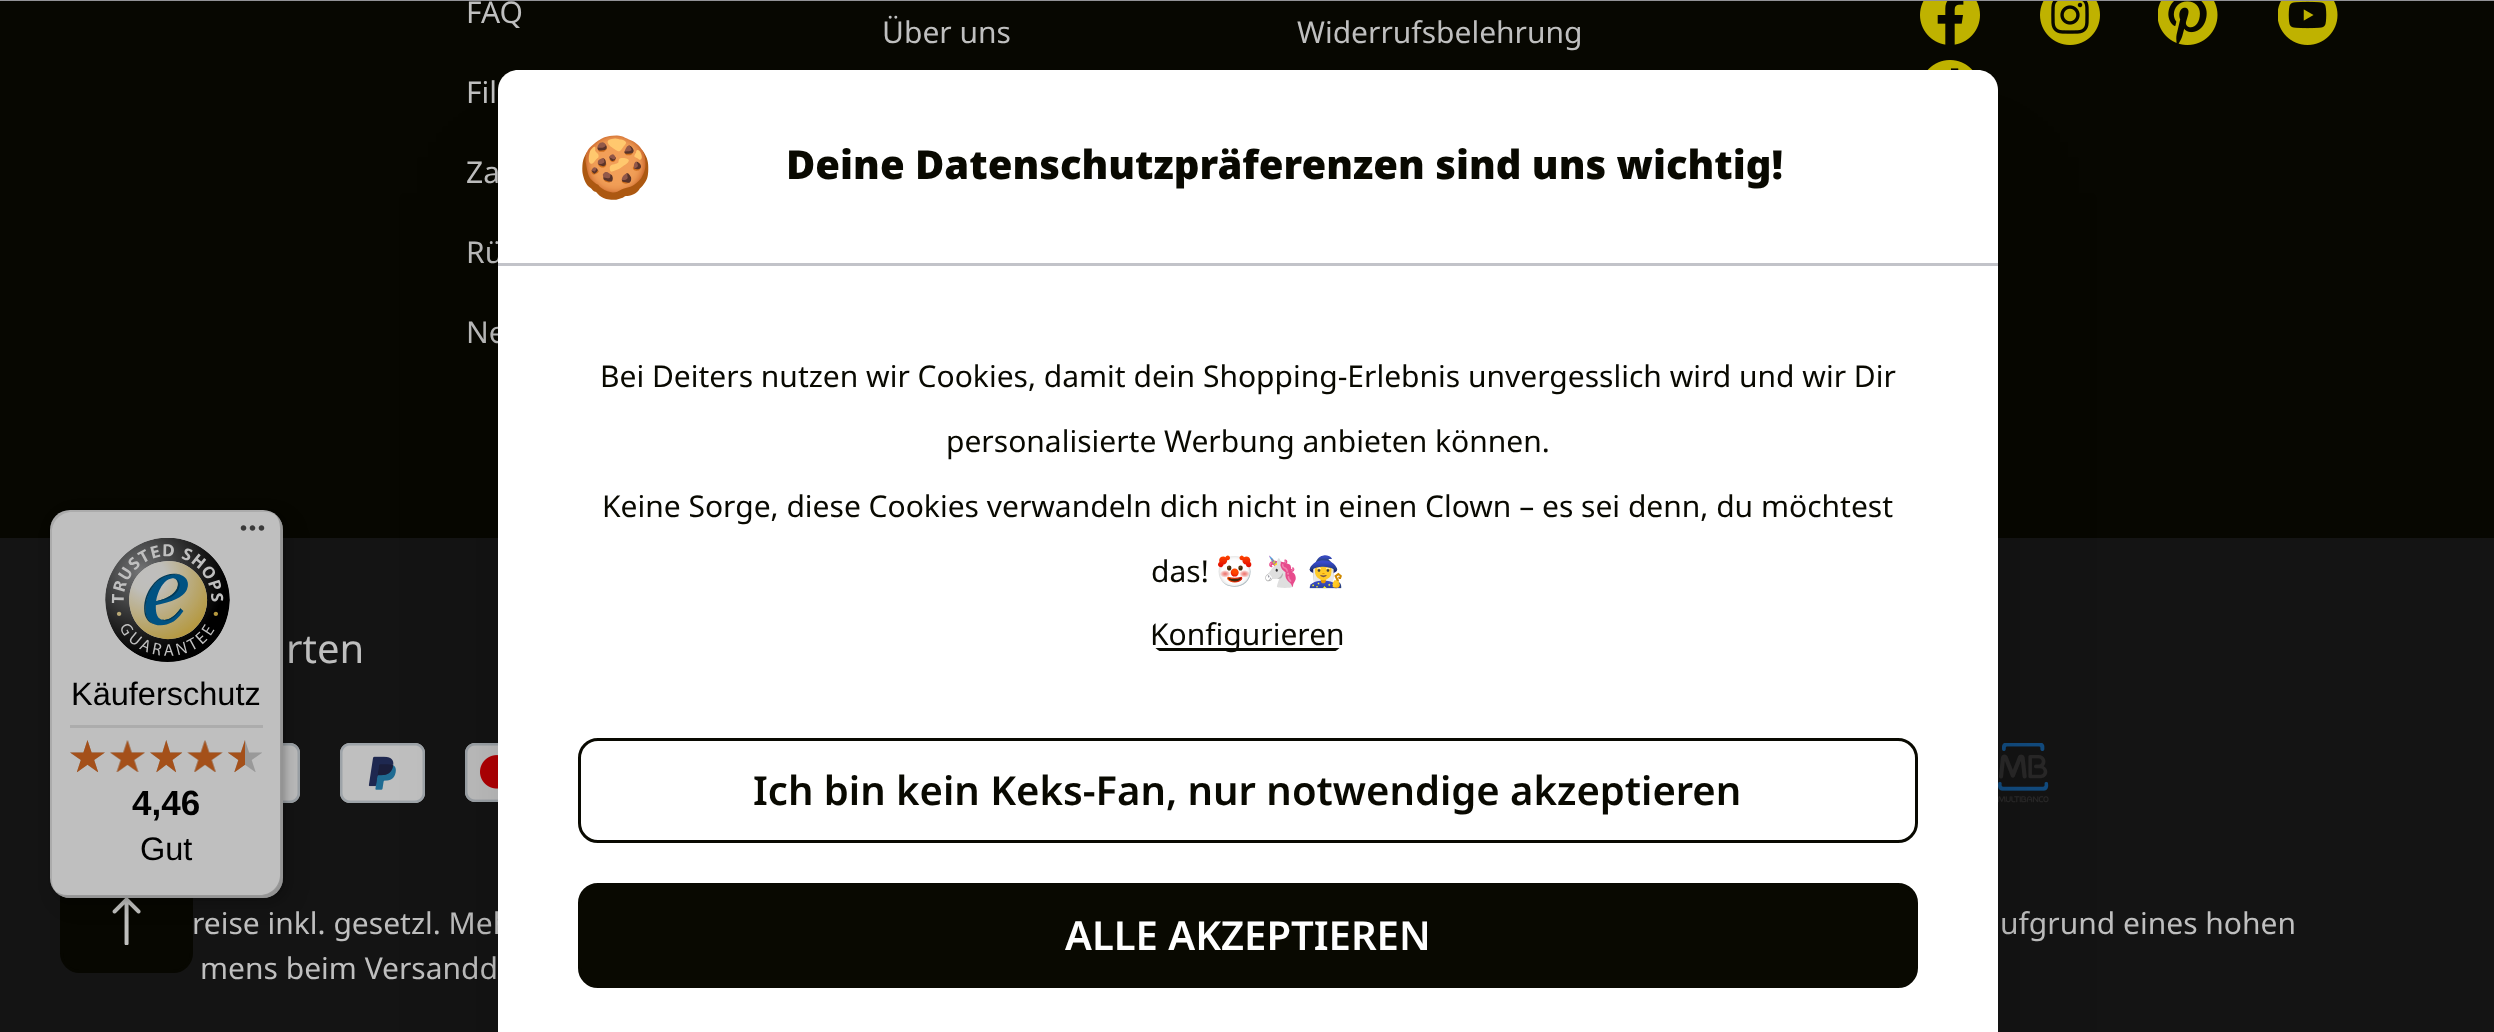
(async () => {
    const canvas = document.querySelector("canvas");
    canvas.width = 2494;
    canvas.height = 1032;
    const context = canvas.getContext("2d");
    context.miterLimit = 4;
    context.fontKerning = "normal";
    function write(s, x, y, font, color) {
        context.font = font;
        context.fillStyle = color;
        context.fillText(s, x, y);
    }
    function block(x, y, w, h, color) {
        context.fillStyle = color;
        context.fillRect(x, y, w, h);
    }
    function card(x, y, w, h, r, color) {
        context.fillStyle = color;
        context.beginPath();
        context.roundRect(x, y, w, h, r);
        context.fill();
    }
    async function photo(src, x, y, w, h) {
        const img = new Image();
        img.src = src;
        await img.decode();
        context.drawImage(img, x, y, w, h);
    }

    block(0, 0, 2494, 1032, "rgb(7, 7, 1)");
    block(0, 0, 2494, 1, "rgb(146, 146, 151)");
    write("FAQ", 466, 23, "30px Noto Sans", "rgb(191, 191, 191)");
    write("Fil", 466, 103, "30px Noto Sans", "rgb(191, 191, 191)");
    write("Za", 466, 183, "30px Noto Sans", "rgb(191, 191, 191)");
    write("Rü", 466, 263, "30px Noto Sans", "rgb(191, 191, 191)");
    write("Ne", 466, 343, "30px Noto Sans", "rgb(191, 191, 191)");
    write("Über uns", 882, 43, "30px Noto Sans", "rgb(191, 191, 191)");
    write("Widerrufsbelehrung", 1297, 43, "30px Noto Sans", "rgb(191, 191, 191)");
    await photo("media/1.png", 1920, 1, 60, 44);
    await photo("media/2.png", 2040, 1, 60, 44);
    await photo("media/3.png", 2158, 1, 60, 44);
    await photo("media/4.png", 2278, 1, 60, 44);
    await photo("media/5.png", 1927, 60, 46, 10);
    block(0, 538, 2494, 494, "rgb(20, 20, 20)");
    write("rten", 286, 663, "40px Noto Sans", "rgb(191, 191, 191)");
    await photo("media/6.png", 283, 743, 17, 60);
    await photo("media/7.png", 340, 743, 85, 60);
    await photo("media/8.png", 465, 743, 33, 59);
    await photo("media/9.png", 1998, 743, 51, 60);
    write("reise inkl. gesetzl. Meh", 192, 934, "30px Noto Sans", "rgb(191, 191, 191)");
    write("ufgrund eines hohen", 2000, 934, "30px Noto Sans", "rgb(191, 191, 191)");
    write("mens beim Versandd", 200, 979, "30px Noto Sans", "rgb(191, 191, 191)");
    context.fillStyle = "rgb(7, 7, 1)";
    context.beginPath();
    context.roundRect(61.5, 866.5, 130, 105, 18.5);
    context.fill();
    context.strokeStyle = "rgb(7, 7, 1)";
    context.lineWidth = 3;
    context.stroke();
    await photo("media/22.png", 112, 898, 29, 47);
    context.fillStyle = "rgba(0, 0, 0, 0.15)";
    context.filter = "blur(10px)";
    context.beginPath();
    context.roundRect(58, 518, 232, 387, 20);
    context.fill();
    context.filter = "none";
    context.filter = "blur(2.5px)";
    context.beginPath();
    context.roundRect(53, 513, 232, 387, 20);
    context.fill();
    context.filter = "none";
    card(50, 510, 233, 388, 20, "rgb(191, 191, 191)");
    context.fillStyle = "rgba(0, 0, 0, 0.1)";
    context.beginPath();
    context.moveTo(72, 512);
    context.lineTo(265, 512);
    context.bezierCurveTo(270, 512, 275, 514, 278, 517);
    context.bezierCurveTo(275, 513, 269, 510, 263, 510);
    context.lineTo(70, 510);
    context.bezierCurveTo(59, 510, 50, 519, 50, 530);
    context.lineTo(50, 878);
    context.bezierCurveTo(50, 884, 53, 890, 57, 893);
    context.bezierCurveTo(54, 890, 52, 885, 52, 880);
    context.lineTo(52, 532);
    context.bezierCurveTo(52, 521, 61, 512, 72, 512);
    context.closePath();
    context.fill();
    context.fillStyle = "rgba(0, 0, 0, 0.2)";
    context.beginPath();
    context.moveTo(53, 889);
    context.bezierCurveTo(57, 894, 63, 898, 70, 898);
    context.lineTo(263, 898);
    context.bezierCurveTo(274, 898, 283, 889, 283, 878);
    context.lineTo(283, 530);
    context.bezierCurveTo(283, 523, 279, 517, 274, 513);
    context.bezierCurveTo(278, 517, 280, 522, 280, 528);
    context.lineTo(280, 875);
    context.bezierCurveTo(280, 886, 271, 895, 260, 895);
    context.lineTo(68, 895);
    context.bezierCurveTo(62, 895, 57, 893, 53, 889);
    context.closePath();
    context.fill();
    context.fillStyle = "rgba(38, 38, 38, 0.2)";
    context.beginPath();
    context.moveTo(55, 891);
    context.bezierCurveTo(58, 895, 64, 898, 70, 898);
    context.lineTo(263, 898);
    context.bezierCurveTo(274, 898, 283, 889, 283, 878);
    context.lineTo(283, 530);
    context.bezierCurveTo(283, 524, 280, 518, 276, 515);
    context.bezierCurveTo(279, 518, 281, 523, 281, 528);
    context.lineTo(281, 876);
    context.bezierCurveTo(281, 887, 272, 896, 261, 896);
    context.lineTo(68, 896);
    context.bezierCurveTo(63, 896, 58, 894, 55, 891);
    context.closePath();
    context.fill();
    context.fillStyle = "rgba(191, 191, 191, 0.3)";
    context.beginPath();
    context.moveTo(52, 886);
    context.bezierCurveTo(55, 893, 62, 898, 70, 898);
    context.lineTo(263, 898);
    context.bezierCurveTo(274, 898, 283, 889, 283, 878);
    context.lineTo(283, 530);
    context.bezierCurveTo(283, 522, 278, 515, 271, 512);
    context.bezierCurveTo(277, 515, 281, 522, 281, 529);
    context.lineTo(281, 876);
    context.bezierCurveTo(281, 887, 272, 896, 261, 896);
    context.lineTo(69, 896);
    context.bezierCurveTo(62, 896, 55, 892, 52, 886);
    context.closePath();
    context.fill();
    await photo("media/10.png", 240, 525, 25, 6);
    await photo("media/11.png", 105, 538, 125, 124);
    write("Käuferschutz", 71, 705, "32.5px Liberation Sans", "rgb(0, 0, 0)");
    block(70, 725, 193, 3, "rgb(172, 172, 172)");
    await photo("media/12.png", 70, 740, 35, 32);
    await photo("media/13.png", 110, 740, 35, 32);
    await photo("media/14.png", 150, 740, 32, 32);
    await photo("media/15.png", 187, 740, 36, 32);
    await photo("media/16.png", 228, 740, 34, 32);
    await photo("media/17.png", 70, 740, 35, 33);
    await photo("media/18.png", 110, 740, 35, 32);
    await photo("media/19.png", 150, 740, 33, 33);
    await photo("media/20.png", 187, 740, 36, 32);
    await photo("media/21.png", 228, 740, 17, 33);
    write("4,46", 132, 815, "bold 35px Liberation Sans", "rgb(0, 0, 0)");
    write("Gut", 140, 860, "32.5px Liberation Sans", "rgb(0, 0, 0)");
    context.fillStyle = "rgba(0, 0, 0, 0.2)";
    context.filter = "blur(54px)";
    context.beginPath();
    context.roundRect(513, 193, 1470, 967, 5);
    context.fill();
    context.filter = "none";
    context.fillStyle = "rgb(255, 255, 255)";
    context.beginPath();
    context.moveTo(518, 70);
    context.lineTo(1978, 70);
    context.bezierCurveTo(1989, 70, 1998, 79, 1998, 90);
    context.lineTo(1998, 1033);
    context.lineTo(498, 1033);
    context.lineTo(498, 90);
    context.bezierCurveTo(498, 79, 507, 70, 518, 70);
    context.closePath();
    context.fill();
    block(498, 263, 1500, 3, "rgb(194, 195, 201)");
    write("🍪", 578, 188, "bold 60px Noto Color Emoji", "rgb(9, 9, 1)");
    write("Deine Datenschutzpräferenzen sind uns wichtig!", 786, 179, "900 40px Noto Sans", "rgb(9, 9, 1)");
    write("Bei Deiters nutzen wir Cookies, damit dein Shopping-Erlebnis unvergesslich wird und wir Dir", 600, 387, "30px Noto Sans", "rgb(9, 9, 1)");
    write("personalisierte Werbung anbieten können.", 946, 452, "30px Noto Sans", "rgb(9, 9, 1)");
    write("Keine Sorge, diese Cookies verwandeln dich nicht in einen Clown – es sei denn, du möchtest", 602, 517, "30px Noto Sans", "rgb(9, 9, 1)");
    write("das!", 1151, 582, "30px Noto Sans", "rgb(9, 9, 1)");
    write("🤡", 1216, 582, "30px Noto Color Emoji", "rgb(9, 9, 1)");
    write("🦄", 1262, 582, "30px Noto Color Emoji", "rgb(9, 9, 1)");
    write("🧙‍♀️", 1307, 582, "30px Noto Color Emoji", "rgb(9, 9, 1)");
    context.save();
    context.beginPath();
    context.roundRect(1150, 618, 195, 35, 17.5);
    context.clip();
    block(1150, 648, 195, 3, "rgb(9, 9, 1)");
    write("Konfigurieren", 1150, 645, "30px Noto Sans", "rgb(9, 9, 1)");
    context.restore();
    context.beginPath();
    context.roundRect(579.5, 739.5, 1337, 102, 18.5);
    context.strokeStyle = "rgb(9, 9, 1)";
    context.stroke();
    write("Ich bin kein Keks-Fan, nur notwendige akzeptieren", 753, 805, "600 40px Noto Sans", "rgb(9, 9, 1)");
    context.beginPath();
    context.roundRect(579.5, 884.5, 1337, 102, 18.5);
    context.fill();
    context.stroke();
    write("ALLE AKZEPTIEREN", 1065, 950, "600 40px Noto Sans", "rgb(255, 255, 255)");
})();
